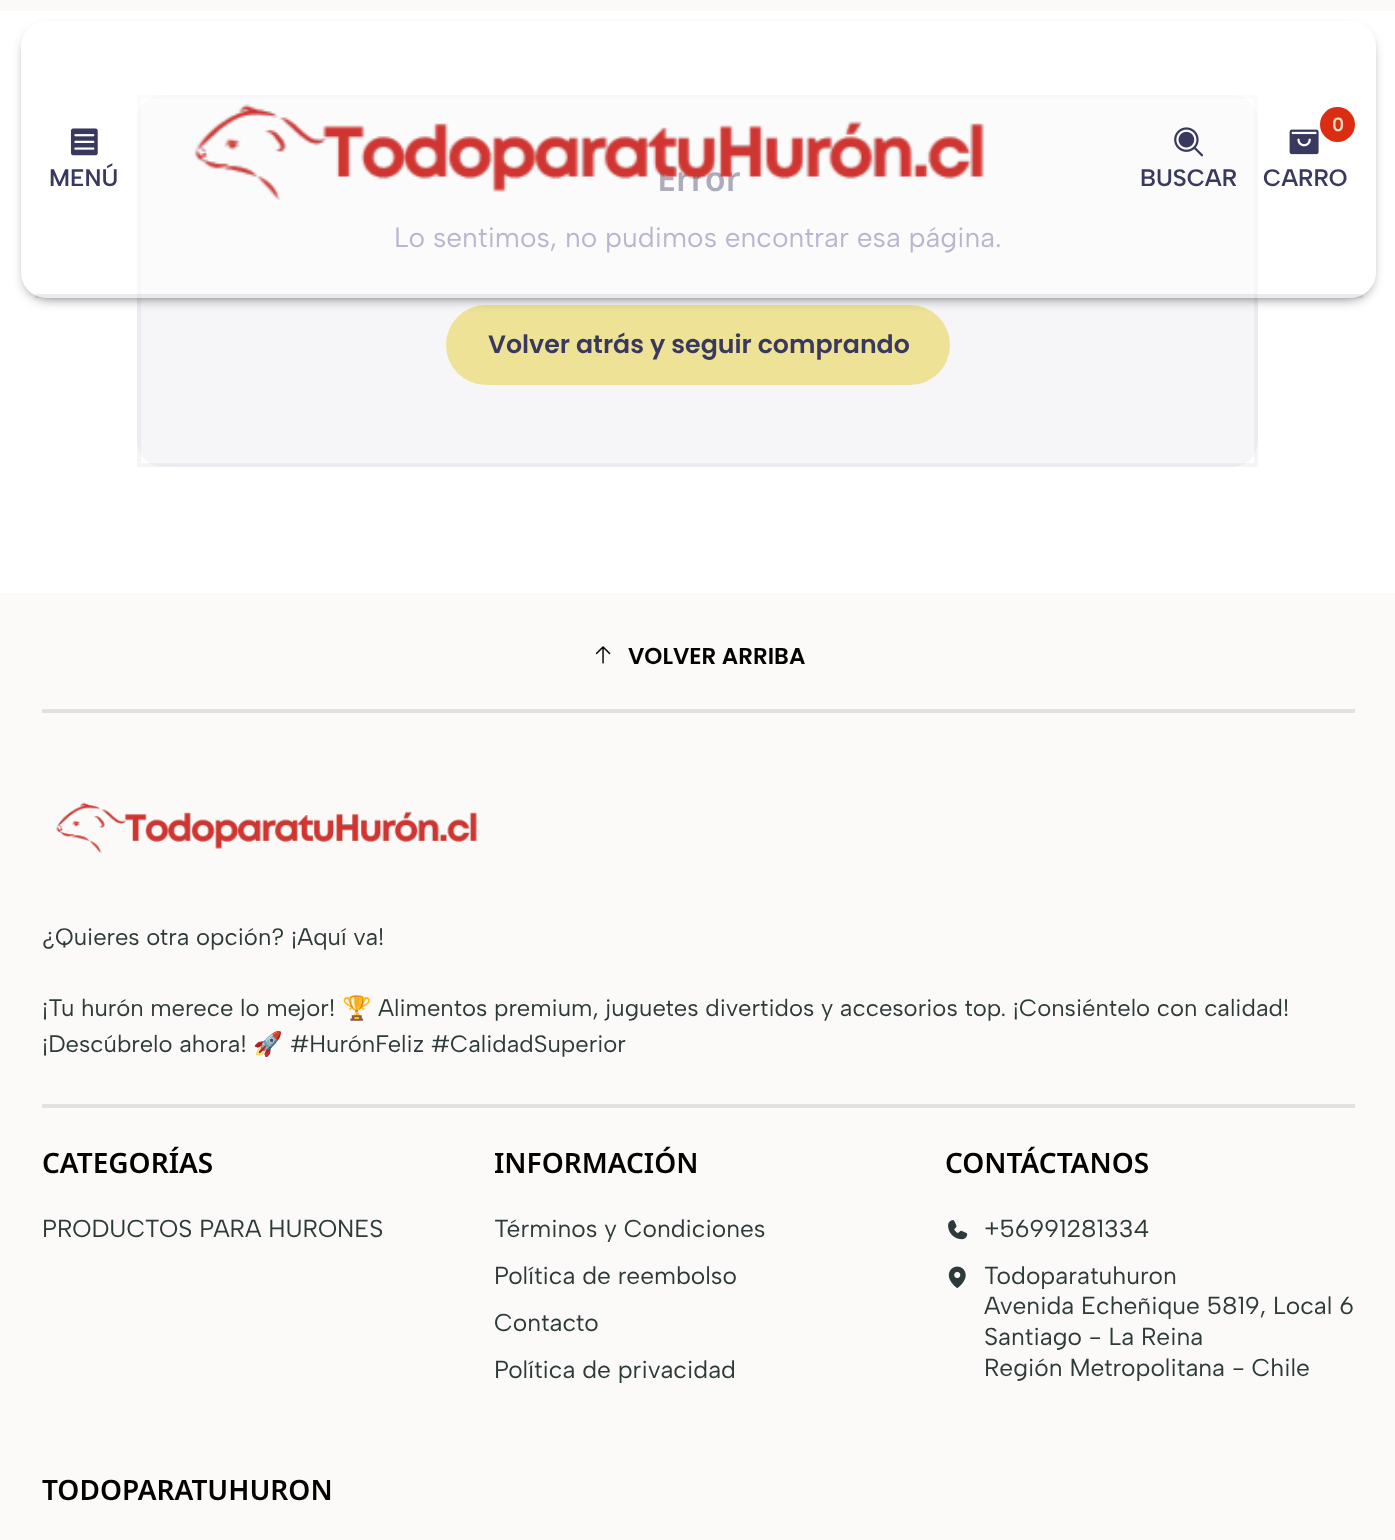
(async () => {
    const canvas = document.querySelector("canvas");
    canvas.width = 1395;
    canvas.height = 1540;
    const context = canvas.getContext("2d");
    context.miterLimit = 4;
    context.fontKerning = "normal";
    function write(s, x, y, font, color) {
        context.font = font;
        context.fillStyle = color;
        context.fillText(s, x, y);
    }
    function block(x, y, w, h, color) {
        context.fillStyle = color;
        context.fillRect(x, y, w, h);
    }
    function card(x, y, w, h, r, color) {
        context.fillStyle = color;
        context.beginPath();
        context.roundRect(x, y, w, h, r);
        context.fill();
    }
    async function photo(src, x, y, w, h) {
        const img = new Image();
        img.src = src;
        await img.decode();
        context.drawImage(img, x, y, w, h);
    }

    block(0, 0, 1395, 1540, "rgb(255, 255, 255)");
    block(0, 0, 1395, 11, "rgb(251, 250, 248)");
    card(137, 95, 1121, 372, 26, "rgb(246, 246, 248)");
    context.strokeStyle = "rgba(57, 57, 95, 0.05)";
    context.lineWidth = 4;
    context.strokeRect(139, 97, 1117, 368);
    card(446, 305, 504, 80, 40, "rgb(238, 226, 150)");
    context.save();
    context.beginPath();
    context.moveTo(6, 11);
    context.lineTo(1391, 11);
    context.lineTo(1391, 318);
    context.lineTo(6, 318);
    context.closePath();
    context.moveTo(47, 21);
    context.lineTo(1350, 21);
    context.bezierCurveTo(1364.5, 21, 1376, 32.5, 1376, 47);
    context.lineTo(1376, 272);
    context.bezierCurveTo(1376, 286.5, 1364.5, 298, 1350, 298);
    context.lineTo(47, 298);
    context.bezierCurveTo(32.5, 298, 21, 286.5, 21, 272);
    context.lineTo(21, 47);
    context.bezierCurveTo(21, 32.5, 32.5, 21, 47, 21);
    context.closePath();
    context.clip("evenodd");
    context.fillStyle = "rgba(0, 0, 0, 0.75)";
    context.filter = "blur(7px)";
    context.beginPath();
    context.roundRect(28, 33, 1341, 263, 19);
    context.fill();
    context.filter = "none";
    context.restore();
    write("Error", 657, 191, "600 34px Noto Sans", "rgb(57, 57, 95)");
    write("Lo sentimos, no pudimos encontrar esa página.", 394, 247, "28px Albert Sans", "rgb(84, 84, 140)");
    card(21, 21, 1355, 277, 26, "rgba(255, 255, 255, 0.58)");
    block(35, 294, 1328, 4, "rgba(57, 57, 95, 0.1)");
    await photo("media/1.png", 70, 128, 28, 28);
    write("MENÚ", 49, 186, "600 23.8px Albert Sans", "rgb(57, 57, 95)");
    await photo("media/2.png", 193, 104, 791, 96);
    await photo("media/3.png", 1174, 127, 30, 30);
    write("BUSCAR", 1140, 186, "600 23.8px Albert Sans", "rgb(57, 57, 95)");
    context.fillStyle = "rgb(220, 45, 19)";
    context.beginPath();
    context.arc(1337.5, 124.5, 17.5, 0, Math.PI * 2);
    context.fill();
    write("0", 1332, 131, "600 19px Albert Sans", "rgb(234, 226, 197)");
    await photo("media/4.png", 1289, 129, 30, 26);
    write("CARRO", 1263, 186, "600 23.8px Albert Sans", "rgb(57, 57, 95)");
    write("Volver atrás y seguir comprando", 488, 353, "600 25.25px Poppins", "rgb(57, 57, 95)");
    block(0, 593, 1395, 947, "rgb(251, 250, 248)");
    await photo("media/5.png", 595, 646, 16, 18);
    write("VOLVER ARRIBA", 628, 664, "600 23px Poppins", "rgb(1, 1, 1)");
    block(42, 709, 1313, 4, "rgb(226, 225, 223)");
    await photo("media/6.png", 56, 802, 421, 52);
    write("¿Quieres otra opción? ¡Aquí va!", 42, 945, "23.8px Albert Sans", "rgb(45, 58, 58)");
    write("¡Tu hurón merece lo mejor!", 42, 1016, "23.8px Albert Sans", "rgb(45, 58, 58)");
    write("🏆", 342, 1016, "23.8px Noto Color Emoji", "rgb(45, 58, 58)");
    write("Alimentos premium, juguetes divertidos y accesorios top. ¡Consiéntelo con calidad!", 378, 1016, "23.8px Albert Sans", "rgb(45, 58, 58)");
    write("¡Descúbrelo ahora!", 42, 1052, "23.8px Albert Sans", "rgb(45, 58, 58)");
    write("🚀", 253, 1052, "23.8px Noto Color Emoji", "rgb(45, 58, 58)");
    write("#HurónFeliz #CalidadSuperior", 290, 1052, "23.8px Albert Sans", "rgb(45, 58, 58)");
    block(42, 1104, 1313, 4, "rgb(226, 225, 223)");
    write("CATEGORÍAS", 42, 1173, "600 28px Noto Sans", "rgb(1, 1, 1)");
    write("PRODUCTOS PARA HURONES", 42, 1237, "24.5px Albert Sans", "rgb(45, 58, 58)");
    write("INFORMACIÓN", 494, 1173, "600 28px Noto Sans", "rgb(1, 1, 1)");
    write("Términos y Condiciones", 494, 1237, "24.5px Albert Sans", "rgb(45, 58, 58)");
    write("Política de reembolso", 494, 1284, "24.5px Albert Sans", "rgb(45, 58, 58)");
    write("Contacto", 494, 1331, "24.5px Albert Sans", "rgb(45, 58, 58)");
    write("Política de privacidad", 494, 1378, "24.5px Albert Sans", "rgb(45, 58, 58)");
    write("CONTÁCTANOS", 945, 1173, "600 28px Noto Sans", "rgb(1, 1, 1)");
    await photo("media/7.png", 948, 1220, 20, 20);
    write("+56991281334", 984, 1237, "24.5px Albert Sans", "rgb(45, 58, 58)");
    await photo("media/8.png", 948, 1266, 18, 22);
    write("Todoparatuhuron", 984, 1284, "24.5px Albert Sans", "rgb(45, 58, 58)");
    write("Avenida Echeñique 5819, Local 6", 984, 1314, "24.5px Albert Sans", "rgb(45, 58, 58)");
    write("Santiago - La Reina", 984, 1345, "24.5px Albert Sans", "rgb(45, 58, 58)");
    write("Región Metropolitana - Chile", 984, 1376, "24.5px Albert Sans", "rgb(45, 58, 58)");
    write("TODOPARATUHURON", 42, 1500, "600 28px Noto Sans", "rgb(1, 1, 1)");
})();
